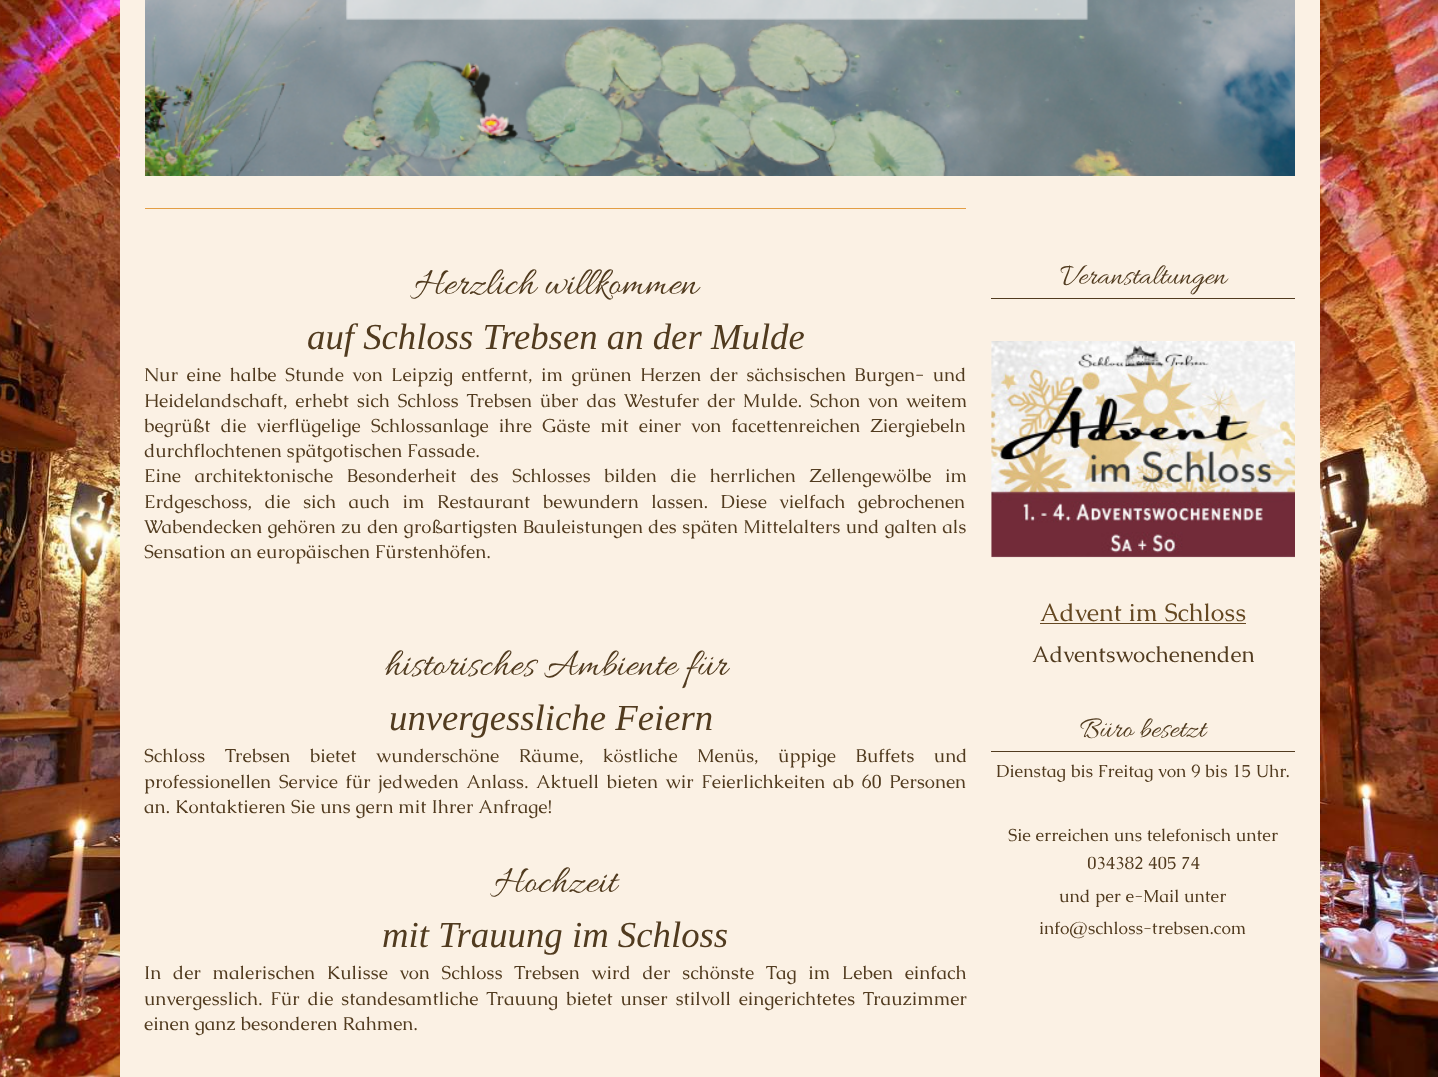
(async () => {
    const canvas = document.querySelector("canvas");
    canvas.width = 1438;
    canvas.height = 1077;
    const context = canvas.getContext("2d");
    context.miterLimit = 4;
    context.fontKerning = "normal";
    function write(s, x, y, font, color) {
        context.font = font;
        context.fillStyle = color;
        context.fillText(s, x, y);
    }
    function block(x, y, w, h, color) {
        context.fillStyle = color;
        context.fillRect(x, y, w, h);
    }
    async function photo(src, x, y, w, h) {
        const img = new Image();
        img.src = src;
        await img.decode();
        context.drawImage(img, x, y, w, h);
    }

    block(0, 0, 1438, 1077, "rgb(255, 255, 255)");
    await photo("media/1.png", 0, 0, 1438, 1077);
    block(120, 0, 1200, 1077, "rgb(251, 241, 228)");
    await photo("media/2.png", 145, 0, 1150, 176);
    block(145, 208, 821, 1, "rgb(227, 158, 68)");
    write("Herzlich willkommen", 414, 293, "40px Allura", "rgb(81, 59, 31)");
    write("auf Schloss Trebsen an der Mulde", 307, 349, "italic 36.75px Liberation Serif", "rgb(81, 59, 31)");
    context.wordSpacing = "3.5px";
    write("Nur eine halbe Stunde von Leipzig entfernt, im grünen Herzen der sächsischen Burgen- und", 144, 381, "18.75px Caudex", "rgb(81, 59, 31)");
    context.wordSpacing = "2.75px";
    write("Heidelandschaft, erhebt sich Schloss Trebsen über das Westufer der Mulde. Schon von weitem", 144, 407, "18.75px Caudex", "rgb(81, 59, 31)");
    context.wordSpacing = "5px";
    write("begrüßt die vierflügelige Schlossanlage ihre Gäste mit einer von facettenreichen Ziergiebeln", 144, 432, "18.75px Caudex", "rgb(81, 59, 31)");
    context.wordSpacing = "0px";
    write("durchflochtenen spätgotischen Fassade.", 144, 457, "18.75px Caudex", "rgb(81, 59, 31)");
    context.wordSpacing = "8.5px";
    write("Eine architektonische Besonderheit des Schlosses bilden die herrlichen Zellengewölbe im", 144, 482, "18.75px Caudex", "rgb(81, 59, 31)");
    context.wordSpacing = "7.5px";
    write("Erdgeschoss, die sich auch im Restaurant bewundern lassen. Diese vielfach gebrochenen", 144, 508, "18.75px Caudex", "rgb(81, 59, 31)");
    context.wordSpacing = "0.25px";
    write("Wabendecken gehören zu den großartigsten Bauleistungen des späten Mittelalters und galten als", 144, 533, "18.75px Caudex", "rgb(81, 59, 31)");
    context.wordSpacing = "0px";
    write("Sensation an europäischen Fürstenhöfen.", 144, 558, "18.75px Caudex", "rgb(81, 59, 31)");
    write("historisches Ambiente für", 384, 674, "40px Allura", "rgb(81, 59, 31)");
    write("unvergessliche Feiern", 389, 730, "italic 36.75px Liberation Serif", "rgb(81, 59, 31)");
    context.wordSpacing = "14.5px";
    write("Schloss Trebsen bietet wunderschöne Räume, köstliche Menüs, üppige Buffets und", 144, 762, "18.75px Caudex", "rgb(81, 59, 31)");
    context.wordSpacing = "2.6px";
    write("professionellen Service für jedweden Anlass. Aktuell bieten wir Feierlichkeiten ab 60 Personen", 144, 788, "18.75px Caudex", "rgb(81, 59, 31)");
    context.wordSpacing = "0px";
    write("an. Kontaktieren Sie uns gern mit Ihrer Anfrage!", 144, 813, "18.75px Caudex", "rgb(81, 59, 31)");
    write("Hochzeit", 494, 891, "40px Allura", "rgb(81, 59, 31)");
    write("mit Trauung im Schloss", 382, 947, "italic 36.75px Liberation Serif", "rgb(81, 59, 31)");
    context.wordSpacing = "6.6px";
    write("In der malerischen Kulisse von Schloss Trebsen wird der schönste Tag im Leben einfach", 144, 979, "18.75px Caudex", "rgb(81, 59, 31)");
    context.wordSpacing = "2.75px";
    write("unvergesslich. Für die standesamtliche Trauung bietet unser stilvoll eingerichtetes Trauzimmer", 144, 1005, "18.75px Caudex", "rgb(81, 59, 31)");
    context.wordSpacing = "0px";
    write("einen ganz besonderen Rahmen.", 144, 1030, "18.75px Caudex", "rgb(81, 59, 31)");
    block(991, 298, 304, 1, "rgb(81, 59, 31)");
    write("Veranstaltungen", 1060, 283, "30px Allura", "rgb(81, 59, 31)");
    await photo("media/3.png", 991, 341, 304, 217);
    write("Advent im Schloss", 1040, 621, "25px Caudex", "rgb(101, 72, 34)");
    block(1040, 623, 206, 1, "rgb(101, 72, 34)");
    write("Adventswochenenden", 1032, 662, "22.5px Caudex", "rgb(81, 59, 31)");
    block(991, 751, 304, 1, "rgb(81, 59, 31)");
    write("Büro besetzt", 1080, 736, "30px Allura", "rgb(81, 59, 31)");
    write("Dienstag bis Freitag von 9 bis 15 Uhr.", 996, 777, "17.5px Caudex", "rgb(81, 59, 31)");
    write("Sie erreichen uns telefonisch unter", 1008, 841, "17.5px Caudex", "rgb(81, 59, 31)");
    write("034382 405 74", 1087, 869, "17.5px Caudex", "rgb(81, 59, 31)");
    write("und per e-Mail unter", 1059, 902, "17.5px Caudex", "rgb(81, 59, 31)");
    write("info@schloss-trebsen.com", 1039, 934, "17.5px Caudex", "rgb(81, 59, 31)");
})();
